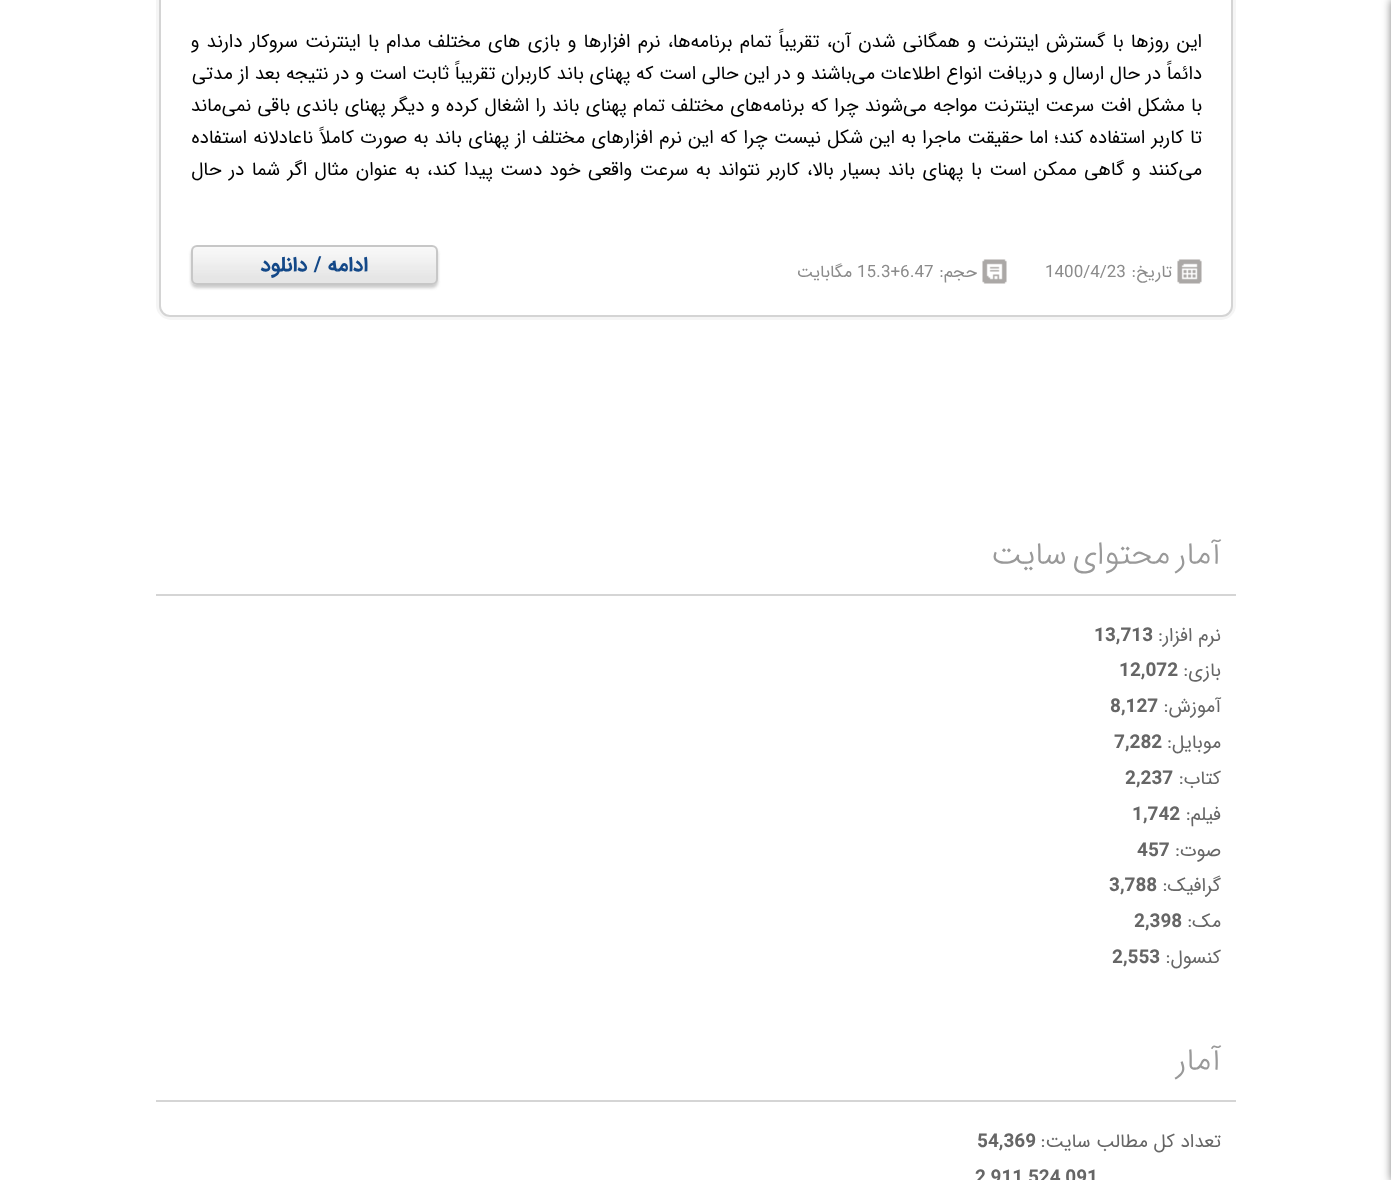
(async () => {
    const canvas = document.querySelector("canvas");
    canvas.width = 1391;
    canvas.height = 1180;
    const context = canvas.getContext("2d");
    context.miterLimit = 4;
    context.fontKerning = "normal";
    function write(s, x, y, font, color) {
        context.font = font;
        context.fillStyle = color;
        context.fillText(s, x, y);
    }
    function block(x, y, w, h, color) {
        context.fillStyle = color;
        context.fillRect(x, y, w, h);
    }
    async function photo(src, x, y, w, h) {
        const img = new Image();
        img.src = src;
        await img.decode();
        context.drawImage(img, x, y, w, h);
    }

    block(0, 0, 1391, 1180, "rgb(255, 255, 255)");
    context.fillStyle = "rgba(0, 0, 0, 0.5)";
    context.filter = "blur(4.5px)";
    context.beginPath();
    context.rect(1391, 0, 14, 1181);
    context.fill();
    context.filter = "none";
    context.beginPath();
    context.roundRect(157.5, -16.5, 1077, 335, 13.5);
    context.strokeStyle = "rgb(245, 245, 245)";
    context.lineWidth = 3;
    context.stroke();
    context.beginPath();
    context.roundRect(160, -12, 1072, 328, 10);
    context.strokeStyle = "rgb(212, 212, 212)";
    context.lineWidth = 2;
    context.stroke();
    context.wordSpacing = "1.6px";
    context.direction = "rtl";
    write("این روزها با گسترش اینترنت و همگانی شدن آن، تقریباً تمام برنامه‌‌ها، نرم افزارها و بازی های مختلف مدام با اینترنت سروکار دارند و", 1202, 47, "18.85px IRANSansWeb", "rgb(0, 0, 0)");
    context.wordSpacing = "0px";
    write("دائماً در حال ارسال و دریافت انواع اطلاعات می‌باشند و در این حالی است که پهنای باند کاربران تقریباً ثابت است و در نتیجه بعد از مدتی", 1202, 79, "18.85px IRANSansWeb", "rgb(0, 0, 0)");
    context.wordSpacing = "0.6px";
    write("با مشکل افت سرعت اینترنت مواجه می‌شوند چرا که برنامه‌های مختلف تمام پهنای باند را اشغال کرده و دیگر پهنای باندی باقی نمی‌ماند", 1202, 111, "18.85px IRANSansWeb", "rgb(0, 0, 0)");
    context.wordSpacing = "0.65px";
    write("تا کاربر استفاده کند؛ اما حقیقت ماجرا به این شکل نیست چرا که این نرم افزارهای مختلف از پهنای باند به صورت کاملاً ناعادلانه استفاده", 1202, 143, "18.85px IRANSansWeb", "rgb(0, 0, 0)");
    context.wordSpacing = "1.8px";
    write("می‌کنند و گاهی ممکن است با پهنای باند بسیار بالا، کاربر نتواند به سرعت واقعی خود دست پیدا کند، به عنوان مثال اگر شما در حال", 1202, 175, "18.85px IRANSansWeb", "rgb(0, 0, 0)");
    await photo("media/1.png", 1177, 259, 25, 25);
    context.wordSpacing = "0px";
    write("تاریخ:", 1172, 277, "17px IRANSansWeb", "rgb(139, 139, 139)");
    context.direction = "ltr";
    write("1400/4/23", 1045, 277, "17px IRANSansWeb", "rgb(139, 139, 139)");
    await photo("media/2.png", 982, 259, 25, 25);
    context.direction = "rtl";
    write("حجم:", 977, 277, "17px IRANSansWeb", "rgb(139, 139, 139)");
    context.direction = "ltr";
    write("15.3+6.47", 857, 277, "17px IRANSansWeb", "rgb(139, 139, 139)");
    context.direction = "rtl";
    write("مگابایت", 852, 277, "17px IRANSansWeb", "rgb(139, 139, 139)");
    context.fillStyle = "rgb(204, 204, 204)";
    context.filter = "blur(1.5px)";
    context.beginPath();
    context.roundRect(191, 248, 247, 40, 6);
    context.fill();
    context.filter = "none";
    await photo("media/3.png", 191, 246, 247, 39);
    context.beginPath();
    context.roundRect(192, 246, 245, 38, 5);
    context.strokeStyle = "rgb(199, 199, 199)";
    context.stroke();
    write("ادامه / دانلود", 368, 271, "bold 20.75px IRANSansWeb", "rgb(19, 72, 136)");
    block(156, 594, 1080, 2, "rgb(213, 213, 213)");
    context.wordSpacing = "-4px";
    write("آمار محتوای سایت", 1221, 564, "300 32px IRANSansWeb", "rgb(153, 153, 153)");
    context.wordSpacing = "0px";
    write("نرم افزار:", 1221, 641, "19px IRANSansWeb", "rgb(102, 102, 102)");
    context.direction = "ltr";
    write("13,713", 1094, 641, "bold 19px IRANSansWeb", "rgb(102, 102, 102)");
    context.direction = "rtl";
    write("بازی:", 1221, 676, "19px IRANSansWeb", "rgb(102, 102, 102)");
    context.direction = "ltr";
    write("12,072", 1119, 676, "bold 19px IRANSansWeb", "rgb(102, 102, 102)");
    context.direction = "rtl";
    write("آموزش:", 1221, 712, "19px IRANSansWeb", "rgb(102, 102, 102)");
    context.direction = "ltr";
    write("8,127", 1110, 712, "bold 19px IRANSansWeb", "rgb(102, 102, 102)");
    context.direction = "rtl";
    write("موبایل:", 1221, 748, "19px IRANSansWeb", "rgb(102, 102, 102)");
    context.direction = "ltr";
    write("7,282", 1114, 748, "bold 19px IRANSansWeb", "rgb(102, 102, 102)");
    context.direction = "rtl";
    write("کتاب:", 1221, 784, "19px IRANSansWeb", "rgb(102, 102, 102)");
    context.direction = "ltr";
    write("2,237", 1125, 784, "bold 19px IRANSansWeb", "rgb(102, 102, 102)");
    context.direction = "rtl";
    write("فیلم:", 1221, 820, "19px IRANSansWeb", "rgb(102, 102, 102)");
    context.direction = "ltr";
    write("1,742", 1132, 820, "bold 19px IRANSansWeb", "rgb(102, 102, 102)");
    context.direction = "rtl";
    write("صوت:", 1221, 856, "19px IRANSansWeb", "rgb(102, 102, 102)");
    context.direction = "ltr";
    write("457", 1137, 856, "bold 19px IRANSansWeb", "rgb(102, 102, 102)");
    context.direction = "rtl";
    write("گرافیک:", 1221, 891, "19px IRANSansWeb", "rgb(102, 102, 102)");
    context.direction = "ltr";
    write("3,788", 1109, 891, "bold 19px IRANSansWeb", "rgb(102, 102, 102)");
    context.direction = "rtl";
    write("مک:", 1221, 927, "19px IRANSansWeb", "rgb(102, 102, 102)");
    context.direction = "ltr";
    write("2,398", 1134, 927, "bold 19px IRANSansWeb", "rgb(102, 102, 102)");
    context.direction = "rtl";
    write("کنسول:", 1221, 963, "19px IRANSansWeb", "rgb(102, 102, 102)");
    context.direction = "ltr";
    write("2,553", 1112, 963, "bold 19px IRANSansWeb", "rgb(102, 102, 102)");
    block(156, 1100, 1080, 2, "rgb(213, 213, 213)");
    context.direction = "rtl";
    write("آمار", 1221, 1070, "300 32px IRANSansWeb", "rgb(153, 153, 153)");
    write("تعداد کل مطالب سایت:", 1221, 1147, "19px IRANSansWeb", "rgb(102, 102, 102)");
    context.direction = "ltr";
    write("54,369", 977, 1147, "bold 19px IRANSansWeb", "rgb(102, 102, 102)");
    write("2,911,524,091", 975, 1183, "bold 19px IRANSansWeb", "rgb(102, 102, 102)");
})();
